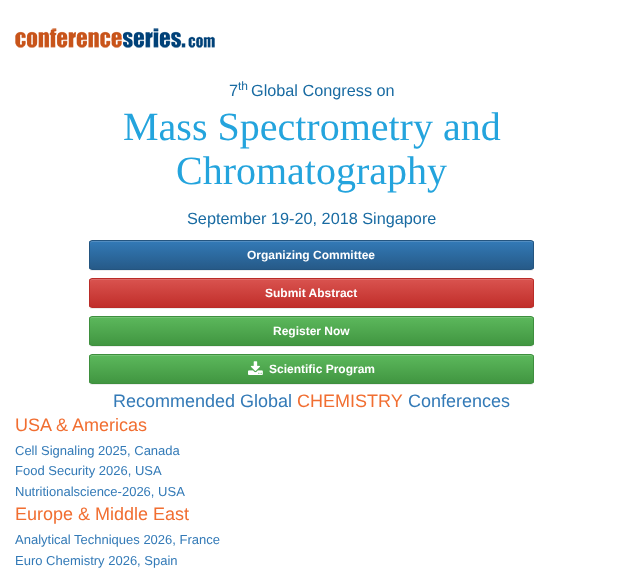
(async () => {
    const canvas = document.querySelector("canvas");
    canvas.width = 623;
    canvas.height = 582;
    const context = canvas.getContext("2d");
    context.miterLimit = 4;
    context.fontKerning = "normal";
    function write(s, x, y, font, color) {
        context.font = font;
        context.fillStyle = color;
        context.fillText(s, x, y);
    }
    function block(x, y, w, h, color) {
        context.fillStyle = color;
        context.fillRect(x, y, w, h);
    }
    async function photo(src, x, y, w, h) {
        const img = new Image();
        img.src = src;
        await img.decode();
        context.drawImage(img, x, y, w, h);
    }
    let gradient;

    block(0, 0, 623, 582, "rgb(255, 255, 255)");
    await photo("media/1.png", 15, 28, 200, 20);
    write("7", 229, 96, "16.25px Liberation Sans", "rgb(25, 107, 162)");
    write("th", 238, 90, "12px Liberation Sans", "rgb(25, 107, 162)");
    write("Global Congress on", 251, 96, "16.25px Liberation Sans", "rgb(25, 107, 162)");
    write("Mass Spectrometry and", 123, 140, "40px Liberation Serif", "rgb(36, 164, 221)");
    write("Chromatography", 176, 184, "40px Liberation Serif", "rgb(36, 164, 221)");
    write("September 19-20, 2018 Singapore", 187, 224, "16.25px Liberation Sans", "rgb(25, 107, 162)");
    context.fillStyle = "rgba(0, 0, 0, 0.07)";
    context.filter = "blur(0.5px)";
    context.beginPath();
    context.roundRect(89, 241, 445, 30, 3);
    context.fill();
    context.filter = "none";
    context.save();
    context.beginPath();
    context.roundRect(89, 240, 445, 30, 3);
    context.clip();
    gradient = context.createLinearGradient(312, 241, 312, 269);
    gradient.addColorStop(0, "rgb(51, 122, 183)");
    gradient.addColorStop(1, "rgb(38, 90, 136)");
    context.fillStyle = gradient;
    context.fillRect(89, 241, 445, 28);
    context.restore();
    context.fillStyle = "rgb(82, 141, 193)";
    context.beginPath();
    context.moveTo(92, 242);
    context.lineTo(531, 242);
    context.bezierCurveTo(532, 242, 533, 243, 533, 244);
    context.bezierCurveTo(533, 243, 533, 241, 531, 241);
    context.lineTo(92, 241);
    context.bezierCurveTo(90, 241, 90, 243, 90, 244);
    context.bezierCurveTo(90, 243, 91, 242, 92, 242);
    context.closePath();
    context.fill();
    context.beginPath();
    context.roundRect(89.5, 240.5, 444, 29, 2.5);
    context.strokeStyle = "rgb(36, 85, 128)";
    context.stroke();
    write("Organizing Committee", 247, 259, "bold 12px Liberation Sans", "rgb(255, 255, 255)");
    context.fillStyle = "rgba(0, 0, 0, 0.07)";
    context.filter = "blur(0.5px)";
    context.beginPath();
    context.roundRect(89, 279, 445, 30, 3);
    context.fill();
    context.filter = "none";
    context.save();
    context.beginPath();
    context.roundRect(89, 278, 445, 30, 3);
    context.clip();
    gradient = context.createLinearGradient(312, 279, 312, 307);
    gradient.addColorStop(0, "rgb(217, 83, 79)");
    gradient.addColorStop(1, "rgb(193, 46, 42)");
    context.fillStyle = gradient;
    context.fillRect(89, 279, 445, 28);
    context.restore();
    context.fillStyle = "rgb(223, 108, 105)";
    context.beginPath();
    context.moveTo(92, 280);
    context.lineTo(531, 280);
    context.bezierCurveTo(532, 280, 533, 281, 533, 282);
    context.bezierCurveTo(533, 281, 533, 279, 531, 279);
    context.lineTo(92, 279);
    context.bezierCurveTo(90, 279, 90, 281, 90, 282);
    context.bezierCurveTo(90, 281, 91, 280, 92, 280);
    context.closePath();
    context.fill();
    context.beginPath();
    context.roundRect(89.5, 278.5, 444, 29, 2.5);
    context.strokeStyle = "rgb(185, 44, 40)";
    context.stroke();
    write("Submit Abstract", 265, 297, "bold 12px Liberation Sans", "rgb(255, 255, 255)");
    context.fillStyle = "rgba(0, 0, 0, 0.07)";
    context.filter = "blur(0.5px)";
    context.beginPath();
    context.roundRect(89, 317, 445, 30, 3);
    context.fill();
    context.filter = "none";
    context.save();
    context.beginPath();
    context.roundRect(89, 316, 445, 30, 3);
    context.clip();
    gradient = context.createLinearGradient(312, 317, 312, 345);
    gradient.addColorStop(0, "rgb(92, 184, 92)");
    gradient.addColorStop(1, "rgb(65, 150, 65)");
    context.fillStyle = gradient;
    context.fillRect(89, 317, 445, 28);
    context.restore();
    context.fillStyle = "rgb(116, 194, 116)";
    context.beginPath();
    context.moveTo(92, 318);
    context.lineTo(531, 318);
    context.bezierCurveTo(532, 318, 533, 319, 533, 320);
    context.bezierCurveTo(533, 319, 533, 317, 531, 317);
    context.lineTo(92, 317);
    context.bezierCurveTo(90, 317, 90, 319, 90, 320);
    context.bezierCurveTo(90, 319, 91, 318, 92, 318);
    context.closePath();
    context.fill();
    context.beginPath();
    context.roundRect(89.5, 316.5, 444, 29, 2.5);
    context.strokeStyle = "rgb(62, 143, 62)";
    context.stroke();
    write("Register Now", 273, 335, "bold 12px Liberation Sans", "rgb(255, 255, 255)");
    context.fillStyle = "rgba(0, 0, 0, 0.07)";
    context.filter = "blur(0.5px)";
    context.beginPath();
    context.roundRect(89, 355, 445, 30, 3);
    context.fill();
    context.filter = "none";
    context.save();
    context.beginPath();
    context.roundRect(89, 354, 445, 30, 3);
    context.clip();
    gradient = context.createLinearGradient(312, 355, 312, 383);
    gradient.addColorStop(0, "rgb(92, 184, 92)");
    gradient.addColorStop(1, "rgb(65, 150, 65)");
    context.fillStyle = gradient;
    context.fillRect(89, 355, 445, 28);
    context.restore();
    context.fillStyle = "rgb(116, 194, 116)";
    context.beginPath();
    context.moveTo(92, 356);
    context.lineTo(531, 356);
    context.bezierCurveTo(532, 356, 533, 357, 533, 358);
    context.bezierCurveTo(533, 357, 533, 355, 531, 355);
    context.lineTo(92, 355);
    context.bezierCurveTo(90, 355, 90, 357, 90, 358);
    context.bezierCurveTo(90, 357, 91, 356, 92, 356);
    context.closePath();
    context.fill();
    context.beginPath();
    context.roundRect(89.5, 354.5, 444, 29, 2.5);
    context.stroke();
    await photo("media/2.png", 248, 361, 15, 14);
    write("Scientific Program", 269, 373, "bold 12px Liberation Sans", "rgb(255, 255, 255)");
    write("Recommended Global", 113, 407, "18px Liberation Sans", "rgb(51, 122, 183)");
    write("CHEMISTRY", 297, 407, "18px Liberation Sans", "rgb(241, 110, 49)");
    write("Conferences", 408, 407, "18px Liberation Sans", "rgb(51, 122, 183)");
    write("USA & Americas", 15, 431, "18px Liberation Sans", "rgb(241, 110, 49)");
    write("Cell Signaling 2025, Canada", 15, 455, "13px Liberation Sans", "rgb(51, 122, 183)");
    write("Food Security 2026, USA", 15, 475, "13px Liberation Sans", "rgb(51, 122, 183)");
    write("Nutritionalscience-2026, USA", 15, 496, "13px Liberation Sans", "rgb(51, 122, 183)");
    write("Europe & Middle East", 15, 520, "18px Liberation Sans", "rgb(241, 110, 49)");
    write("Analytical Techniques 2026, France", 15, 544, "13px Liberation Sans", "rgb(51, 122, 183)");
    write("Euro Chemistry 2026, Spain", 15, 565, "13px Liberation Sans", "rgb(51, 122, 183)");
})();
